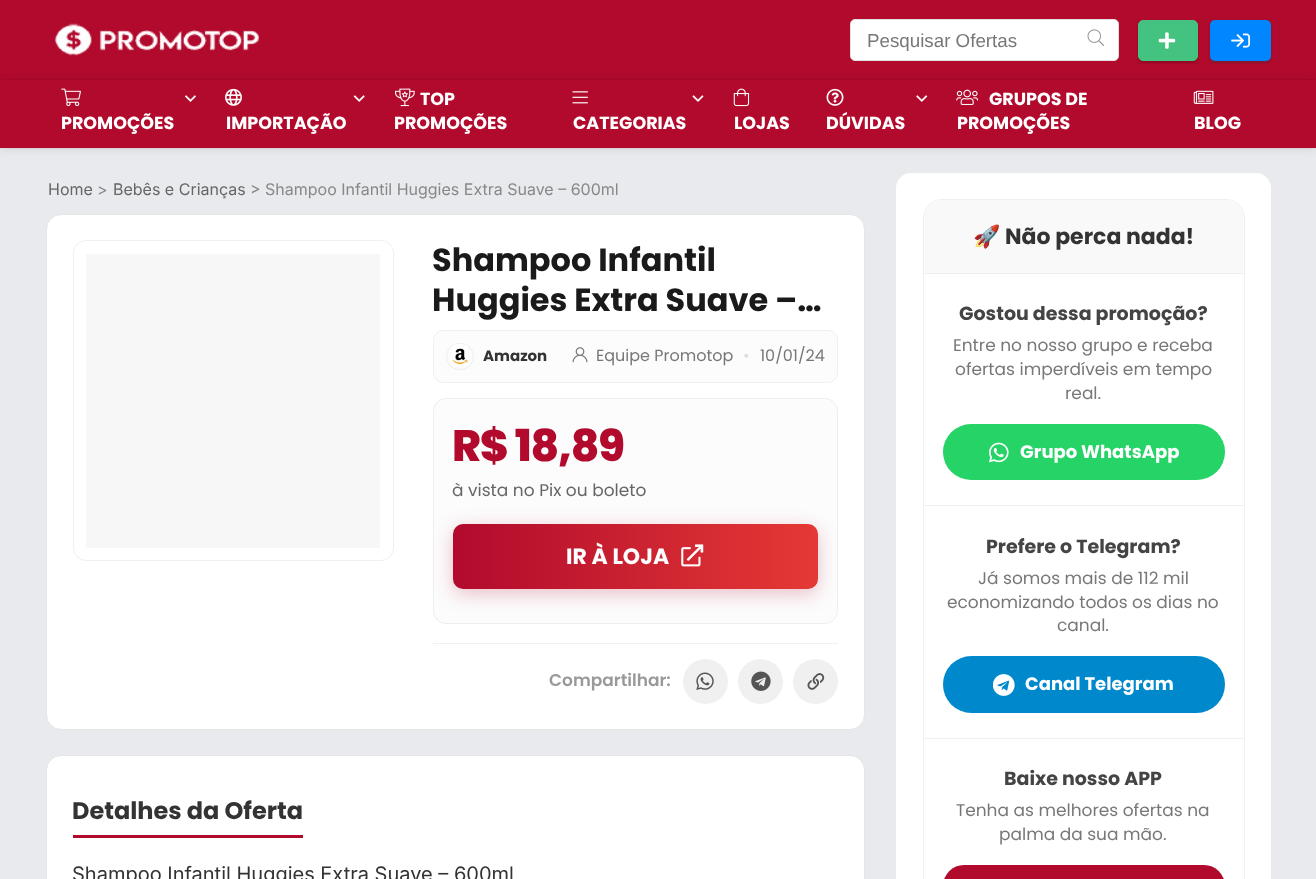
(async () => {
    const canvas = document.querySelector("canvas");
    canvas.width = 1316;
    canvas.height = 879;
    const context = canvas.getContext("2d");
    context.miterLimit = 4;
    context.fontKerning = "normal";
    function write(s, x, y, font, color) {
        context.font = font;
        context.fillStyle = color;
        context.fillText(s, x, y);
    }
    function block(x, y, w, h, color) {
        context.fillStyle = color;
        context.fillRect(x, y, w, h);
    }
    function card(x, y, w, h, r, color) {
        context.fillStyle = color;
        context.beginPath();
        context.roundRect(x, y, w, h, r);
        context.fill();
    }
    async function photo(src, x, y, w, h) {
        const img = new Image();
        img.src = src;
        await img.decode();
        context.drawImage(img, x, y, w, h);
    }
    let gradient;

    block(0, 0, 1316, 879, "rgb(233, 234, 237)");
    block(0, 0, 1316, 80, "rgb(177, 10, 45)");
    await photo("media/1.png", 54, 23, 205, 33);
    context.fillStyle = "rgb(255, 255, 255)";
    context.beginPath();
    context.roundRect(850.5, 19.5, 268, 41, 4.5);
    context.fill();
    context.strokeStyle = "rgb(225, 225, 225)";
    context.stroke();
    write("Pesquisar Ofertas", 867, 47, "18.75px Liberation Sans", "rgb(119, 119, 119)");
    await photo("media/2.png", 1087, 29, 18, 17);
    context.fillStyle = "rgba(0, 0, 0, 0.2)";
    context.filter = "blur(1px)";
    context.beginPath();
    context.roundRect(1138, 21, 60, 42, 5);
    context.fill();
    context.filter = "none";
    context.fillStyle = "rgb(68, 194, 127)";
    context.beginPath();
    context.roundRect(1138.5, 20.5, 59, 40, 4.5);
    context.fill();
    context.strokeStyle = "rgb(68, 194, 127)";
    context.stroke();
    await photo("media/3.png", 1158, 32, 18, 17);
    context.fillStyle = "rgba(0, 0, 0, 0.08)";
    context.filter = "blur(1px)";
    context.beginPath();
    context.roundRect(1210, 21, 61, 42, 5);
    context.fill();
    context.filter = "none";
    context.fillStyle = "rgba(60, 64, 67, 0.3)";
    context.filter = "blur(1px)";
    context.beginPath();
    context.roundRect(1210, 21, 61, 42, 5);
    context.fill();
    context.filter = "none";
    card(1210, 20, 61, 41, 5, "rgb(0, 134, 255)");
    await photo("media/4.png", 1231, 33, 19, 15);
    context.strokeStyle = "rgba(0, 0, 0, 0.03)";
    context.strokeRect(-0.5, 79.5, 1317, 69);
    context.fillStyle = "rgba(0, 0, 0, 0.1)";
    context.filter = "blur(5px)";
    context.beginPath();
    context.rect(0, 81, 1316, 68);
    context.fill();
    context.filter = "none";
    block(0, 80, 1316, 68, "rgb(177, 10, 45)");
    await photo("media/5.png", 61, 88, 20, 19);
    await photo("media/6.png", 185, 95, 11, 7);
    write("PROMOÇÕES", 61, 129, "bold 17.5px Poppins", "rgb(255, 255, 255)");
    await photo("media/7.png", 225, 88, 17, 18);
    await photo("media/8.png", 353, 95, 12, 7);
    write("IMPORTAÇÃO", 226, 129, "bold 17.5px Poppins", "rgb(255, 255, 255)");
    await photo("media/9.png", 395, 88, 20, 19);
    write("TOP", 420, 105, "bold 17.5px Poppins", "rgb(255, 255, 255)");
    write("PROMOÇÕES", 394, 129, "bold 17.5px Poppins", "rgb(255, 255, 255)");
    await photo("media/10.png", 572, 91, 16, 13);
    await photo("media/11.png", 692, 95, 12, 7);
    write("CATEGORIAS", 573, 129, "bold 17.5px Poppins", "rgb(255, 255, 255)");
    await photo("media/12.png", 733, 88, 17, 19);
    write("LOJAS", 734, 129, "bold 17.5px Poppins", "rgb(255, 255, 255)");
    await photo("media/13.png", 826, 88, 18, 18);
    await photo("media/14.png", 916, 95, 12, 7);
    write("DÚVIDAS", 826, 129, "bold 17.5px Poppins", "rgb(255, 255, 255)");
    await photo("media/15.png", 956, 89, 23, 16);
    write("GRUPOS DE", 989, 105, "bold 17.5px Poppins", "rgb(255, 255, 255)");
    write("PROMOÇÕES", 957, 129, "bold 17.5px Poppins", "rgb(255, 255, 255)");
    await photo("media/16.png", 1193, 90, 21, 14);
    write("BLOG", 1194, 129, "bold 17.5px Poppins", "rgb(255, 255, 255)");
    write("Home", 48, 195, "16px Inter", "rgb(102, 102, 102)");
    write(">", 97, 195, "16px Inter", "rgb(136, 136, 136)");
    write("Bebês e Crianças", 113, 195, "16px Inter", "rgb(102, 102, 102)");
    write("> Shampoo Infantil Huggies Extra Suave – 600ml", 250, 195, "16px Inter", "rgb(136, 136, 136)");
    context.fillStyle = "rgb(255, 255, 255)";
    context.beginPath();
    context.roundRect(46.5, 214.5, 818, 515, 14.5);
    context.fill();
    context.strokeStyle = "rgb(229, 229, 229)";
    context.stroke();
    context.beginPath();
    context.roundRect(73.5, 240.5, 320, 320, 12.5);
    context.strokeStyle = "rgb(240, 240, 240)";
    context.stroke();
    block(86, 254, 294, 294, "rgb(247, 247, 247)");
    write("Shampoo Infantil", 432, 271, "bold 32px Poppins", "rgb(26, 26, 26)");
    write("Huggies Extra Suave –…", 432, 311, "bold 32px Poppins", "rgb(26, 26, 26)");
    context.fillStyle = "rgb(252, 252, 252)";
    context.beginPath();
    context.roundRect(433.5, 330.5, 404, 52, 9.5);
    context.fill();
    context.stroke();
    context.beginPath();
    context.roundRect(446.5, 343.5, 27, 26, 13);
    context.strokeStyle = "rgb(238, 238, 238)";
    context.stroke();
    await photo("media/17.png", 452, 344, 16, 21);
    write("Amazon", 483, 361, "bold 15px Poppins", "rgb(51, 51, 51)");
    await photo("media/18.png", 572, 347, 16, 16);
    write("Equipe Promotop", 596, 361, "16px Poppins", "rgb(119, 119, 119)");
    write("•", 743, 361, "16px Poppins", "rgb(221, 221, 221)");
    write("10/01/24", 760, 361, "16px Poppins", "rgb(119, 119, 119)");
    context.fillStyle = "rgb(252, 252, 252)";
    context.beginPath();
    context.roundRect(433.5, 398.5, 404, 225, 12.5);
    context.fill();
    context.stroke();
    context.letterSpacing = "-1.25px";
    write("R$ 18,89", 452, 461, "800 44px Poppins", "rgb(177, 10, 45)");
    context.letterSpacing = "0px";
    write("à vista no Pix ou boleto", 452, 496, "17px Poppins", "rgb(102, 102, 102)");
    context.fillStyle = "rgba(177, 10, 45, 0.25)";
    context.filter = "blur(9.5px)";
    context.beginPath();
    context.roundRect(453, 529, 365, 65, 10);
    context.fill();
    context.filter = "none";
    gradient = context.createLinearGradient(453, 556, 818, 556);
    gradient.addColorStop(0, "rgb(177, 10, 45)");
    gradient.addColorStop(1, "rgb(229, 57, 53)");
    context.fillStyle = gradient;
    context.beginPath();
    context.roundRect(453, 524, 365, 65, 10);
    context.fill();
    write("IR À LOJA", 566, 564, "bold 22px Poppins", "rgb(255, 255, 255)");
    await photo("media/19.png", 681, 544, 23, 23);
    block(433, 643, 405, 1, "rgb(240, 240, 240)");
    write("Compartilhar:", 549, 686, "600 17px Poppins", "rgb(153, 153, 153)");
    context.fillStyle = "rgb(240, 240, 240)";
    context.beginPath();
    context.arc(705.5, 681.5, 22.5, 0, Math.PI * 2);
    context.fill();
    await photo("media/20.png", 696, 672, 18, 18);
    context.beginPath();
    context.arc(760.5, 681.5, 22.5, 0, Math.PI * 2);
    context.fill();
    await photo("media/21.png", 751, 671, 20, 20);
    context.beginPath();
    context.arc(815.5, 681.5, 22.5, 0, Math.PI * 2);
    context.fill();
    await photo("media/22.png", 807, 673, 18, 17);
    context.fillStyle = "rgb(255, 255, 255)";
    context.beginPath();
    context.roundRect(46.5, 755.5, 818, 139, 14.5);
    context.fill();
    context.strokeStyle = "rgb(229, 229, 229)";
    context.stroke();
    block(73, 835, 230, 3, "rgb(177, 10, 45)");
    write("Detalhes da Oferta", 72, 819, "bold 24px Poppins", "rgb(51, 51, 51)");
    write("Shampoo Infantil Huggies Extra Suave – 600ml", 72, 881, "20px Inter", "rgb(51, 51, 51)");
    card(896, 173, 375, 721, 15, "rgb(255, 255, 255)");
    context.beginPath();
    context.roundRect(923.5, 199.5, 321, 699, 18.5);
    context.strokeStyle = "rgb(240, 240, 240)";
    context.stroke();
    context.fillStyle = "rgb(249, 249, 249)";
    context.beginPath();
    context.roundRect(924, 200, 320, 74, [18, 18, 0, 0]);
    context.fill();
    block(924, 273, 320, 1, "rgb(238, 238, 238)");
    write("🚀", 973, 244, "bold 22px Noto Color Emoji", "rgb(51, 51, 51)");
    write("Não perca nada!", 1005, 244, "bold 22px Poppins", "rgb(51, 51, 51)");
    block(924, 505, 320, 1, "rgb(240, 240, 240)");
    write("Gostou dessa promoção?", 959, 320, "bold 19px Poppins", "rgb(68, 68, 68)");
    write("Entre no nosso grupo e receba", 953, 351, "17px Poppins", "rgb(119, 119, 119)");
    write("ofertas imperdíveis em tempo", 955, 375, "17px Poppins", "rgb(119, 119, 119)");
    write("real.", 1065, 399, "17px Poppins", "rgb(119, 119, 119)");
    card(943, 424, 282, 56, 28, "rgb(37, 211, 102)");
    await photo("media/23.png", 989, 442, 20, 21);
    write("Grupo WhatsApp", 1020, 458, "bold 18px Poppins", "rgb(255, 255, 255)");
    block(924, 738, 320, 1, "rgb(240, 240, 240)");
    write("Prefere o Telegram?", 986, 553, "bold 19px Poppins", "rgb(68, 68, 68)");
    write("Já somos mais de 112 mil", 978, 584, "17px Poppins", "rgb(119, 119, 119)");
    write("economizando todos os dias no", 947, 608, "17px Poppins", "rgb(119, 119, 119)");
    write("canal.", 1057, 631, "17px Poppins", "rgb(119, 119, 119)");
    card(943, 656, 282, 57, 28.5, "rgb(0, 136, 204)");
    await photo("media/24.png", 993, 674, 22, 22);
    write("Canal Telegram", 1025, 690, "bold 18px Poppins", "rgb(255, 255, 255)");
    write("Baixe nosso APP", 1004, 785, "bold 19px Poppins", "rgb(68, 68, 68)");
    write("Tenha as melhores ofertas na", 956, 816, "17px Poppins", "rgb(119, 119, 119)");
    write("palma da sua mão.", 999, 840, "17px Poppins", "rgb(119, 119, 119)");
    card(943, 865, 282, 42, 28, "rgb(177, 10, 45)");
})();
